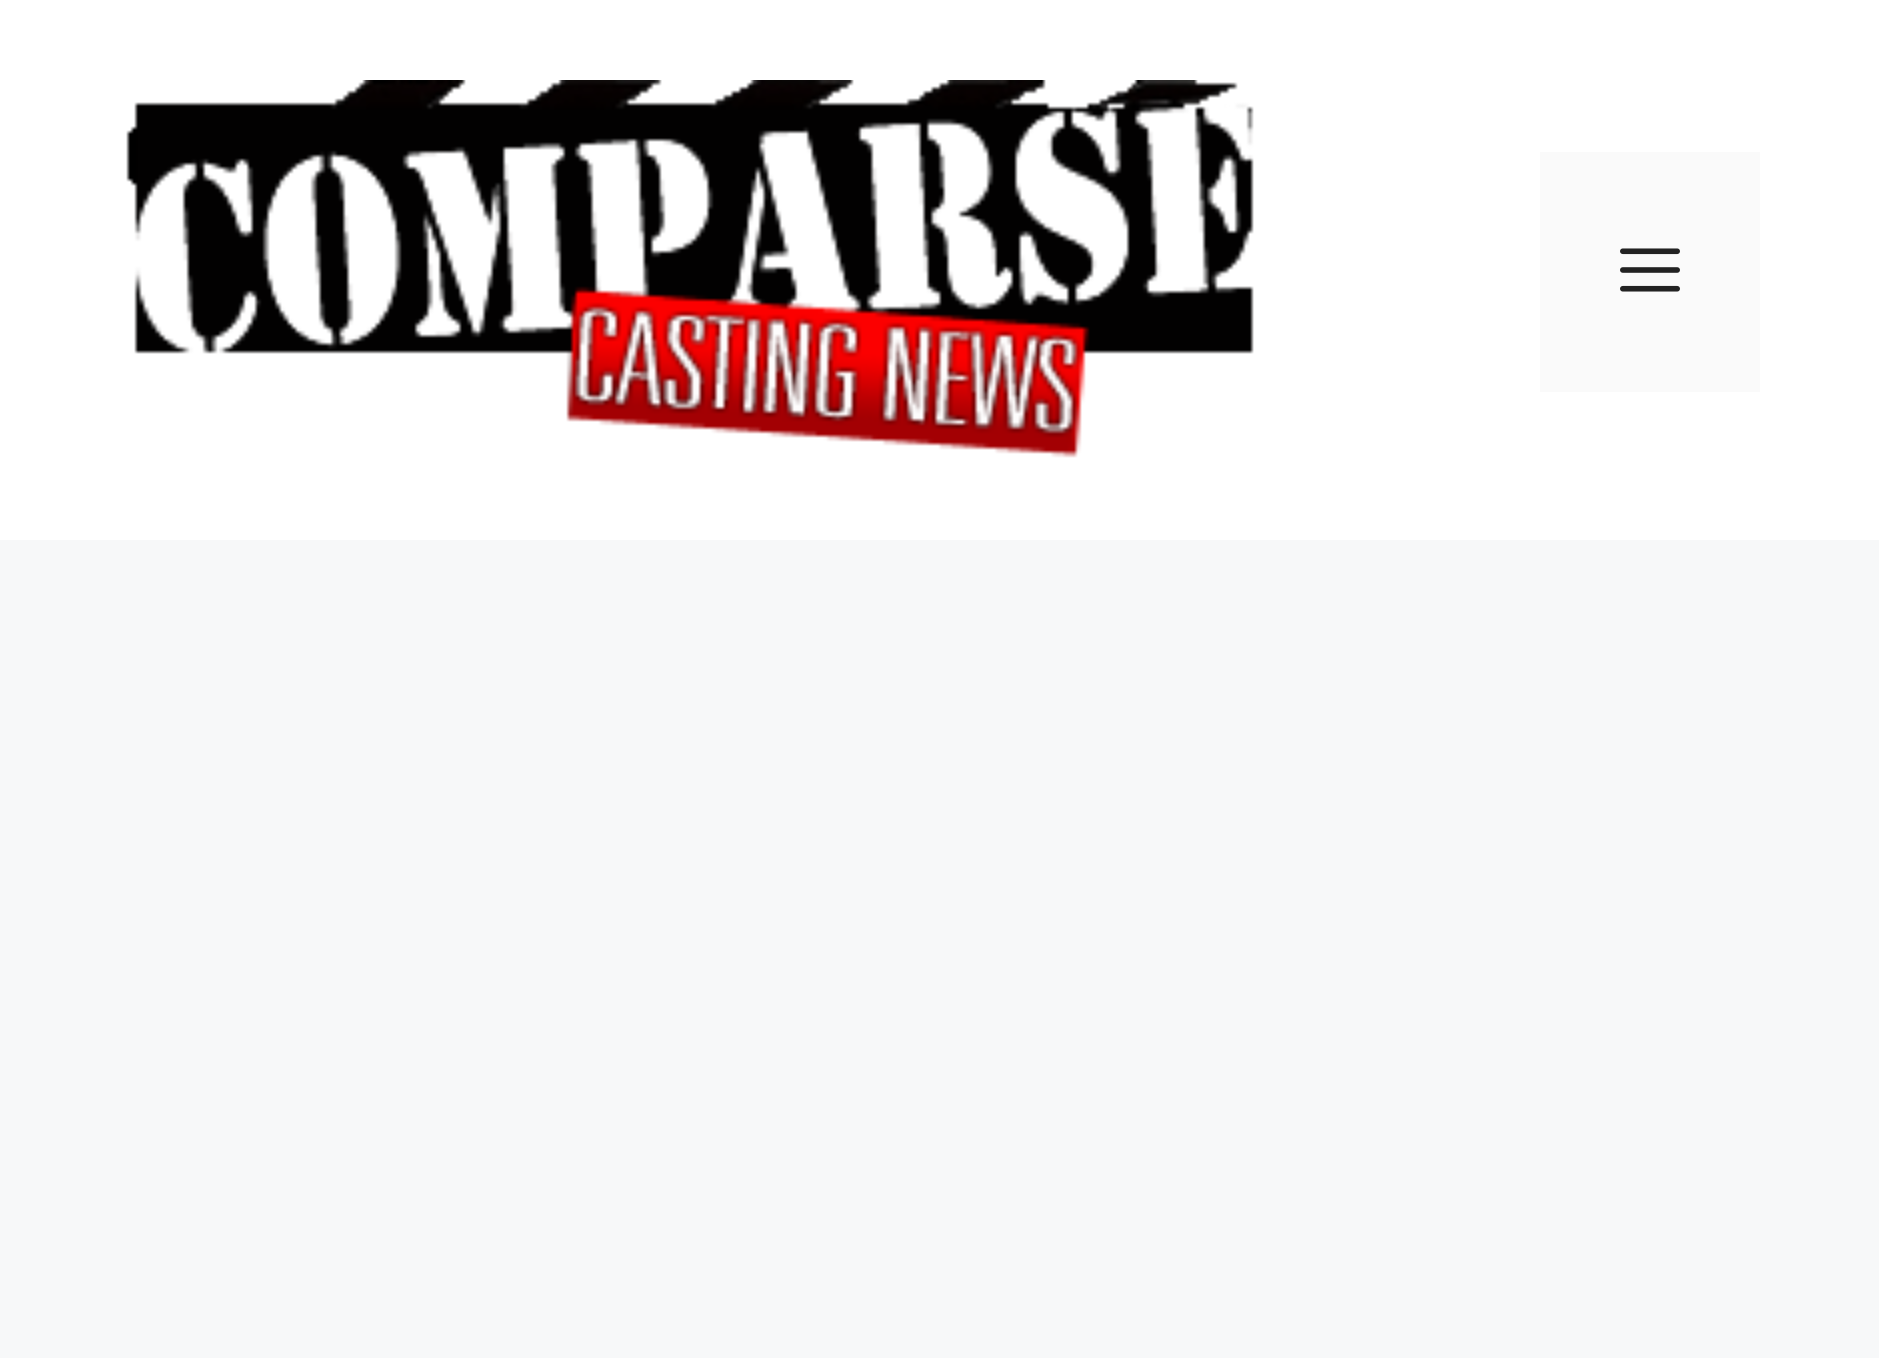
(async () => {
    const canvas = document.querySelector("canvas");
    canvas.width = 1879;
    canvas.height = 1358;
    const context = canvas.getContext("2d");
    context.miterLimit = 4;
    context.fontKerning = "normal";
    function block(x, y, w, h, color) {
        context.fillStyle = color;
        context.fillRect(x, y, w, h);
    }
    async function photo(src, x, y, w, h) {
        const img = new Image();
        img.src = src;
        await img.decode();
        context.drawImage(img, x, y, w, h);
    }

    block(0, 0, 1879, 1358, "rgb(247, 248, 249)");
    block(0, 0, 1879, 540, "rgb(255, 255, 255)");
    await photo("media/1.png", 126, 80, 1128, 378);
    block(1540, 152, 220, 240, "rgb(250, 250, 250)");
    await photo("media/2.png", 1620, 248, 60, 44);
})();
